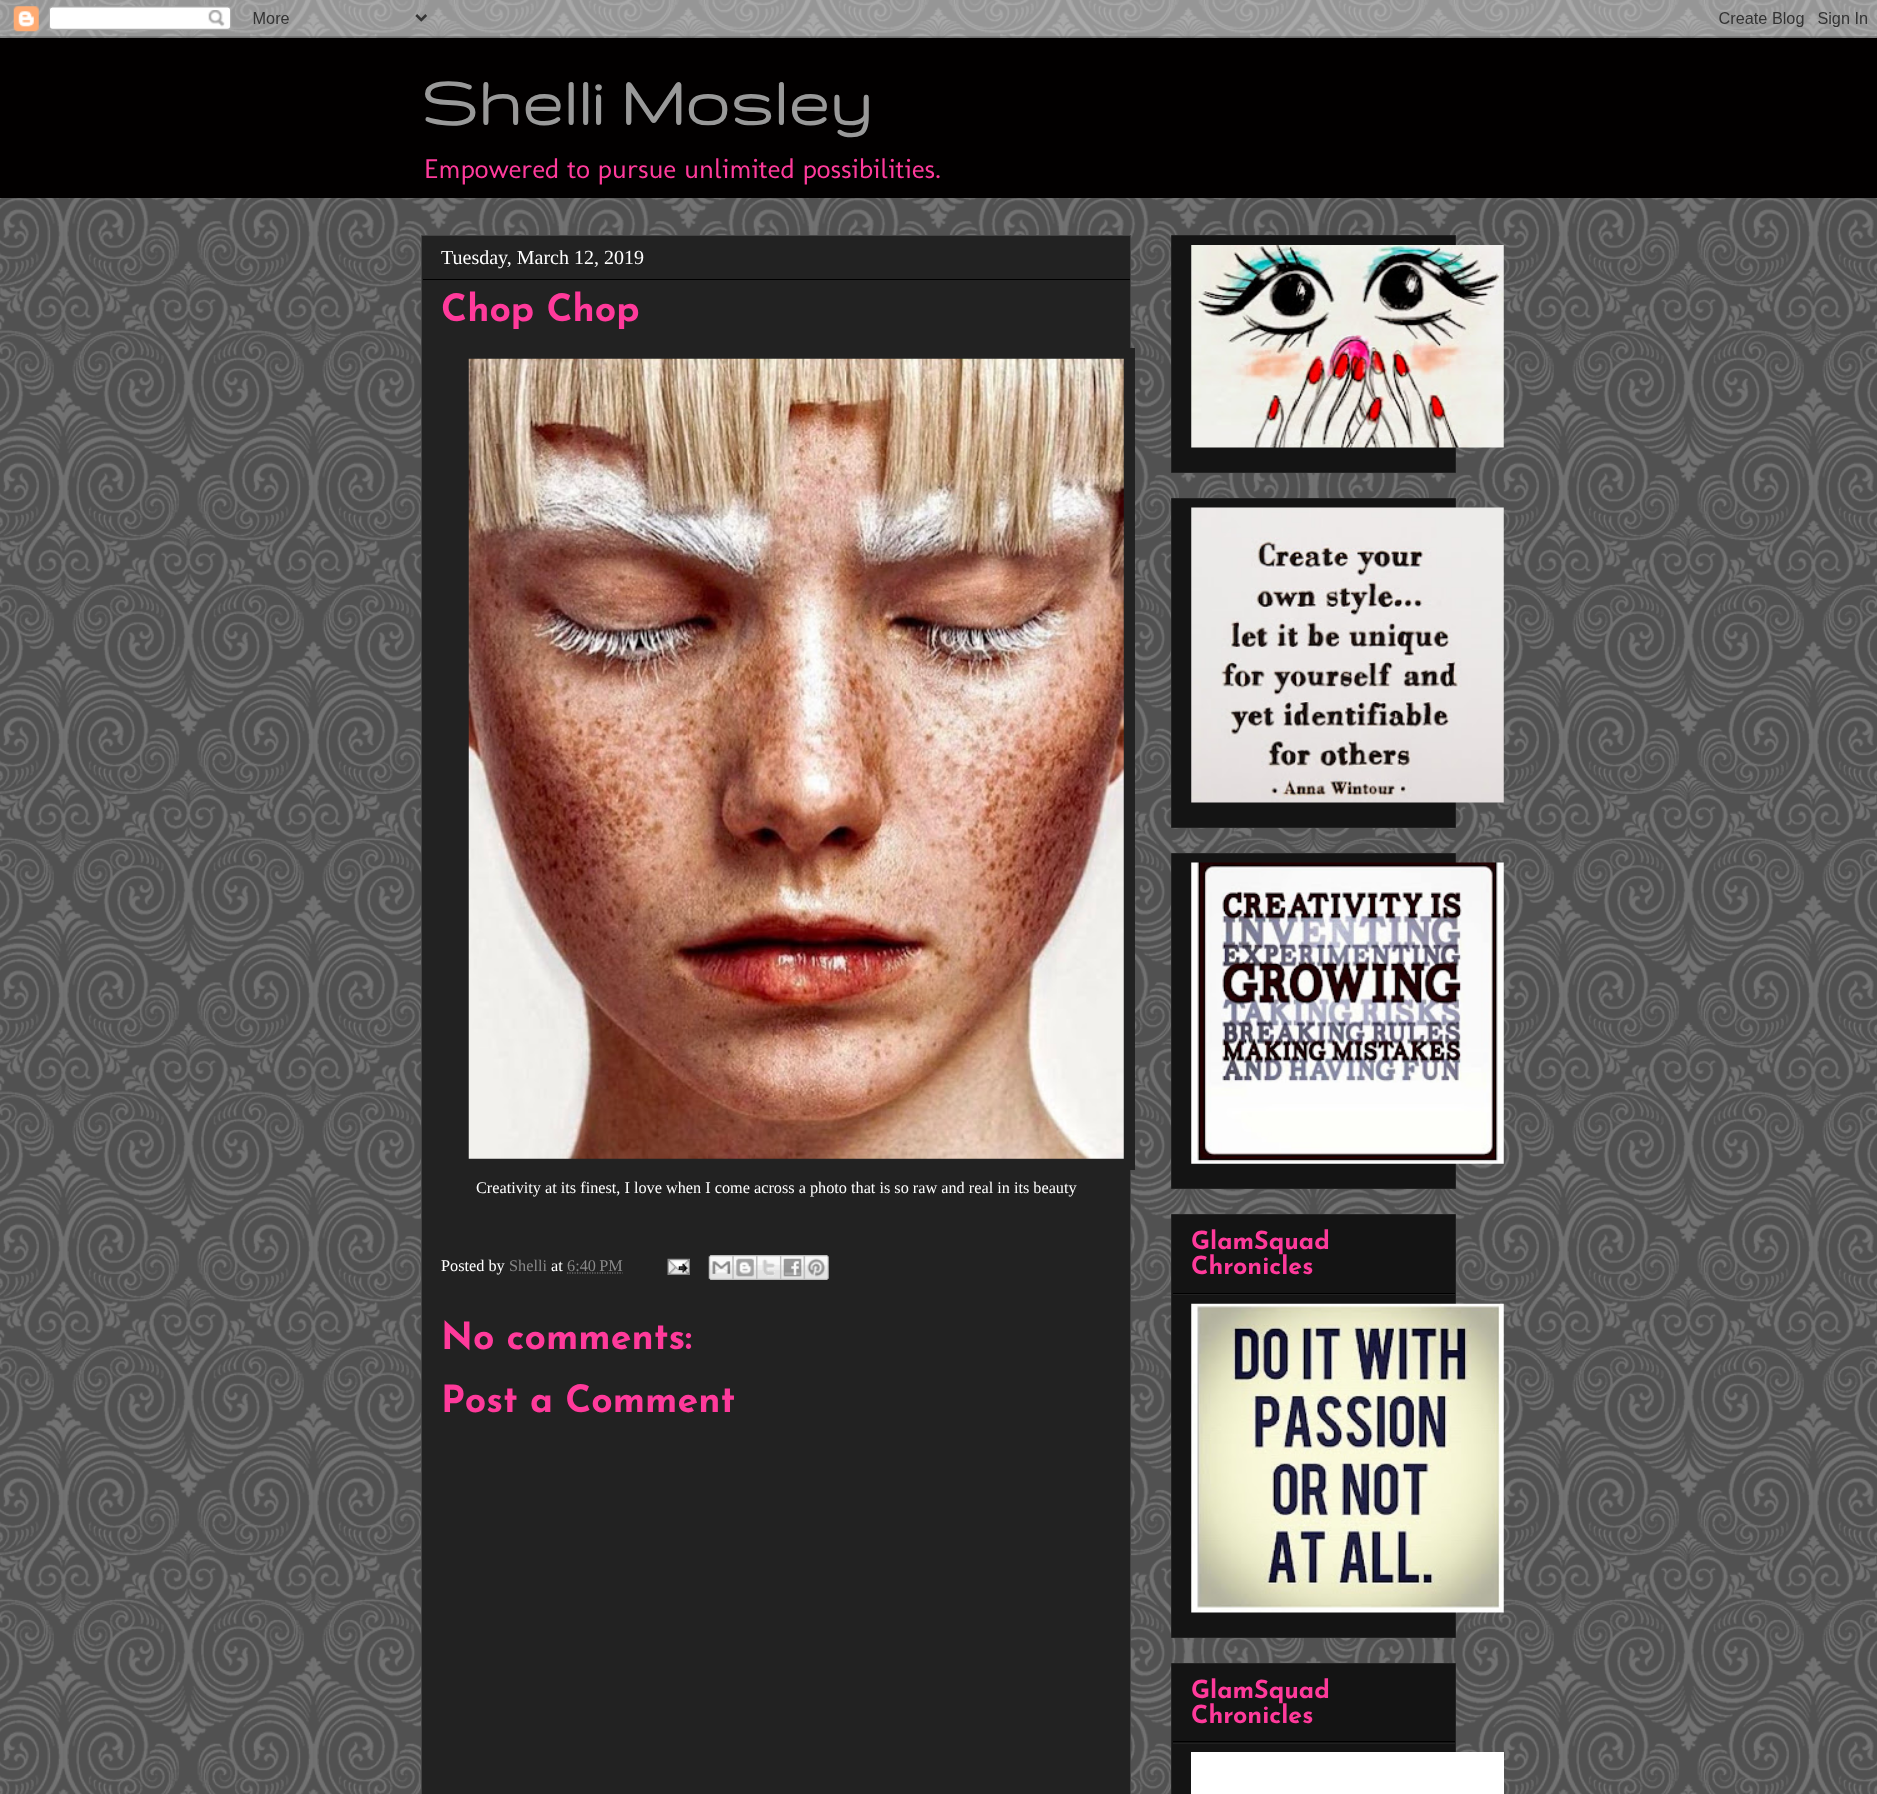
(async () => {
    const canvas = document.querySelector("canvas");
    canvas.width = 1877;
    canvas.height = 1794;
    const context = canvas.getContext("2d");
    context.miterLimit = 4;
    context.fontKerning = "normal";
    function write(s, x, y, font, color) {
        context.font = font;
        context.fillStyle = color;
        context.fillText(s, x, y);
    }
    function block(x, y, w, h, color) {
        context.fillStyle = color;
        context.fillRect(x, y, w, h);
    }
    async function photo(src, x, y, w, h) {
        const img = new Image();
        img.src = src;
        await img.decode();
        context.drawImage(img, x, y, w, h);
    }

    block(0, 0, 1877, 1794, "rgb(102, 102, 102)");
    await photo("media/1.png", 0, 0, 1877, 1794);
    await photo("media/2.png", 0, 0, 1877, 38);
    block(0, 38, 1877, 160, "rgb(2, 0, 0)");
    write("Shelli Mosley", 421, 125, "bold 75px Gruppo", "rgb(153, 153, 153)");
    write("Empowered to pursue unlimited possibilities.", 424, 178, "27.5px Molengo", "rgb(255, 58, 155)");
    context.fillStyle = "rgb(34, 34, 34)";
    context.beginPath();
    context.rect(421.5, 235.5, 709, 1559);
    context.fill();
    context.strokeStyle = "rgb(68, 68, 68)";
    context.stroke();
    block(423, 279, 707, 1, "rgb(0, 0, 0)");
    write("Tuesday, March 12, 2019", 441, 264, "20px Liberation Serif", "rgb(255, 255, 255)");
    write("Chop Chop", 441, 321, "100 37.5px Josefin Sans", "rgb(255, 58, 155)");
    await photo("media/3.png", 468, 358, 656, 801);
    block(1130, 348, 5, 822, "rgb(34, 34, 34)");
    write("Creativity at its finest, I love when I come across a photo that is so raw and real in its beauty", 476, 1193, "16.25px Liberation Serif", "rgb(255, 255, 255)");
    write("Posted by", 441, 1271, "16.25px Liberation Serif", "rgb(255, 255, 255)");
    write("Shelli", 509, 1271, "16.25px Liberation Serif", "rgb(136, 136, 136)");
    write("at", 551, 1271, "16.25px Liberation Serif", "rgb(255, 255, 255)");
    write("6:40 PM", 567, 1271, "16.25px Liberation Serif", "rgb(136, 136, 136)");
    context.beginPath();
    context.moveTo(567, 1273);
    context.lineTo(622.5, 1273);
    context.strokeStyle = "rgb(136, 136, 136)";
    context.lineWidth = 1.2;
    context.setLineDash([1.25, 1.25]);
    context.stroke();
    await photo("media/4.png", 667, 1258, 23, 17);
    await photo("media/5.png", 708, 1255, 25, 25);
    await photo("media/6.png", 732, 1255, 25, 25);
    await photo("media/7.png", 756, 1255, 24, 25);
    await photo("media/8.png", 780, 1255, 24, 25);
    await photo("media/9.png", 803, 1255, 26, 25);
    write("No comments:", 441, 1349, "100 37.5px Josefin Sans", "rgb(255, 58, 155)");
    write("Post a Comment", 441, 1412, "100 37.5px Josefin Sans", "rgb(255, 58, 155)");
    context.fillStyle = "rgb(20, 20, 20)";
    context.beginPath();
    context.rect(1171.5, 235.5, 284, 237);
    context.fill();
    context.strokeStyle = "rgb(34, 34, 34)";
    context.lineWidth = 1;
    context.setLineDash([]);
    context.stroke();
    await photo("media/10.png", 1191, 245, 313, 203);
    context.beginPath();
    context.rect(1171.5, 498.5, 284, 329);
    context.fill();
    context.stroke();
    await photo("media/11.png", 1191, 507, 313, 296);
    context.beginPath();
    context.rect(1171.5, 853.5, 284, 335);
    context.fill();
    context.stroke();
    await photo("media/12.png", 1191, 862, 313, 302);
    context.beginPath();
    context.rect(1171.5, 1214.5, 284, 423);
    context.fill();
    context.stroke();
    block(1173, 1293, 282, 1, "rgb(0, 0, 0)");
    write("GlamSquad", 1191, 1249, "100 25px Josefin Sans", "rgb(255, 58, 155)");
    write("Chronicles", 1191, 1274, "100 25px Josefin Sans", "rgb(255, 58, 155)");
    block(1173, 1294, 282, 1, "rgb(34, 34, 34)");
    await photo("media/13.png", 1191, 1303, 313, 310);
    context.fillStyle = "rgb(20, 20, 20)";
    context.beginPath();
    context.rect(1171.5, 1663.5, 284, 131);
    context.fill();
    context.stroke();
    block(1173, 1741, 282, 1, "rgb(0, 0, 0)");
    write("GlamSquad", 1191, 1698, "100 25px Josefin Sans", "rgb(255, 58, 155)");
    write("Chronicles", 1191, 1723, "100 25px Josefin Sans", "rgb(255, 58, 155)");
    block(1173, 1743, 282, 1, "rgb(34, 34, 34)");
    block(1191, 1752, 313, 42, "rgb(255, 255, 255)");
})();
